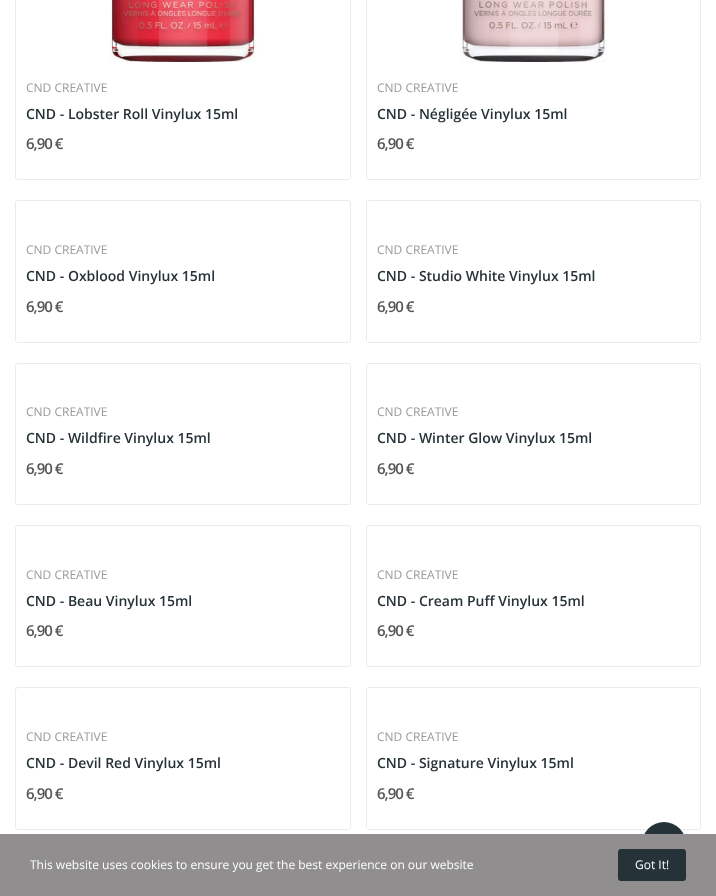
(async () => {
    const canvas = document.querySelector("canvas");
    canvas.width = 716;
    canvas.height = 896;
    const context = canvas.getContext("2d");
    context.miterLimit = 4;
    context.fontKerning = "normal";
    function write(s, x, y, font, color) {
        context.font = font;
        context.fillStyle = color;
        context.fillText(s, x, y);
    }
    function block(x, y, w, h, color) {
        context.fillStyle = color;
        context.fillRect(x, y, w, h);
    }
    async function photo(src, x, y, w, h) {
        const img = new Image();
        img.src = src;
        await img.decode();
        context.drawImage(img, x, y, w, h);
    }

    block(0, 0, 716, 896, "rgb(255, 255, 255)");
    context.beginPath();
    context.roundRect(15.5, -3.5, 335, 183, 2.5);
    context.strokeStyle = "rgb(235, 235, 235)";
    context.stroke();
    await photo("media/1.png", 109, 0, 148, 62);
    context.beginPath();
    context.roundRect(16, 62, 334, 117, [0, 0, 2, 2]);
    context.fill();
    write("CND CREATIVE", 26, 92, "12px Open Sans", "rgb(153, 153, 153)");
    write("CND - Lobster Roll Vinylux 15ml", 26, 119, "600 14px Open Sans", "rgb(37, 50, 55)");
    context.letterSpacing = "-1px";
    write("6,90 €", 26, 149, "600 15px Open Sans", "rgb(85, 85, 85)");
    context.beginPath();
    context.roundRect(366.5, -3.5, 334, 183, 2.5);
    context.stroke();
    await photo("media/2.png", 460, 0, 147, 62);
    context.fillStyle = "rgb(255, 255, 255)";
    context.beginPath();
    context.roundRect(367, 62, 333, 117, [0, 0, 2, 2]);
    context.fill();
    context.letterSpacing = "0px";
    write("CND CREATIVE", 377, 92, "12px Open Sans", "rgb(153, 153, 153)");
    write("CND - Négligée Vinylux 15ml", 377, 119, "600 14px Open Sans", "rgb(37, 50, 55)");
    context.letterSpacing = "-1px";
    write("6,90 €", 377, 149, "600 15px Open Sans", "rgb(85, 85, 85)");
    context.beginPath();
    context.roundRect(15.5, 200.5, 335, 142, 2.5);
    context.stroke();
    context.fillStyle = "rgb(255, 255, 255)";
    context.beginPath();
    context.roundRect(16, 224, 334, 118, [0, 0, 2, 2]);
    context.fill();
    context.letterSpacing = "0px";
    write("CND CREATIVE", 26, 254, "12px Open Sans", "rgb(153, 153, 153)");
    write("CND - Oxblood Vinylux 15ml", 26, 281, "600 14px Open Sans", "rgb(37, 50, 55)");
    context.letterSpacing = "-1px";
    write("6,90 €", 26, 312, "600 15px Open Sans", "rgb(85, 85, 85)");
    context.beginPath();
    context.roundRect(366.5, 200.5, 334, 142, 2.5);
    context.stroke();
    context.fillStyle = "rgb(255, 255, 255)";
    context.beginPath();
    context.roundRect(367, 224, 333, 118, [0, 0, 2, 2]);
    context.fill();
    context.letterSpacing = "0px";
    write("CND CREATIVE", 377, 254, "12px Open Sans", "rgb(153, 153, 153)");
    write("CND - Studio White Vinylux 15ml", 377, 281, "600 14px Open Sans", "rgb(37, 50, 55)");
    context.letterSpacing = "-1px";
    write("6,90 €", 377, 312, "600 15px Open Sans", "rgb(85, 85, 85)");
    context.beginPath();
    context.roundRect(15.5, 363.5, 335, 141, 2.5);
    context.stroke();
    context.fillStyle = "rgb(255, 255, 255)";
    context.beginPath();
    context.roundRect(16, 386, 334, 118, [0, 0, 2, 2]);
    context.fill();
    context.letterSpacing = "0px";
    write("CND CREATIVE", 26, 416, "12px Open Sans", "rgb(153, 153, 153)");
    write("CND - Wildfire Vinylux 15ml", 26, 443, "600 14px Open Sans", "rgb(37, 50, 55)");
    context.letterSpacing = "-1px";
    write("6,90 €", 26, 474, "600 15px Open Sans", "rgb(85, 85, 85)");
    context.beginPath();
    context.roundRect(366.5, 363.5, 334, 141, 2.5);
    context.stroke();
    context.fillStyle = "rgb(255, 255, 255)";
    context.beginPath();
    context.roundRect(367, 386, 333, 118, [0, 0, 2, 2]);
    context.fill();
    context.letterSpacing = "0px";
    write("CND CREATIVE", 377, 416, "12px Open Sans", "rgb(153, 153, 153)");
    write("CND - Winter Glow Vinylux 15ml", 377, 443, "600 14px Open Sans", "rgb(37, 50, 55)");
    context.letterSpacing = "-1px";
    write("6,90 €", 377, 474, "600 15px Open Sans", "rgb(85, 85, 85)");
    context.beginPath();
    context.roundRect(15.5, 525.5, 335, 141, 2.5);
    context.stroke();
    context.fillStyle = "rgb(255, 255, 255)";
    context.beginPath();
    context.roundRect(16, 549, 334, 117, [0, 0, 2, 2]);
    context.fill();
    context.letterSpacing = "0px";
    write("CND CREATIVE", 26, 579, "12px Open Sans", "rgb(153, 153, 153)");
    write("CND - Beau Vinylux 15ml", 26, 606, "600 14px Open Sans", "rgb(37, 50, 55)");
    context.letterSpacing = "-1px";
    write("6,90 €", 26, 636, "600 15px Open Sans", "rgb(85, 85, 85)");
    context.beginPath();
    context.roundRect(366.5, 525.5, 334, 141, 2.5);
    context.stroke();
    context.fillStyle = "rgb(255, 255, 255)";
    context.beginPath();
    context.roundRect(367, 549, 333, 117, [0, 0, 2, 2]);
    context.fill();
    context.letterSpacing = "0px";
    write("CND CREATIVE", 377, 579, "12px Open Sans", "rgb(153, 153, 153)");
    write("CND - Cream Puff Vinylux 15ml", 377, 606, "600 14px Open Sans", "rgb(37, 50, 55)");
    context.letterSpacing = "-1px";
    write("6,90 €", 377, 636, "600 15px Open Sans", "rgb(85, 85, 85)");
    context.beginPath();
    context.roundRect(15.5, 687.5, 335, 142, 2.5);
    context.stroke();
    context.fillStyle = "rgb(255, 255, 255)";
    context.beginPath();
    context.roundRect(16, 711, 334, 118, [0, 0, 2, 2]);
    context.fill();
    context.letterSpacing = "0px";
    write("CND CREATIVE", 26, 741, "12px Open Sans", "rgb(153, 153, 153)");
    write("CND - Devil Red Vinylux 15ml", 26, 768, "600 14px Open Sans", "rgb(37, 50, 55)");
    context.letterSpacing = "-1px";
    write("6,90 €", 26, 799, "600 15px Open Sans", "rgb(85, 85, 85)");
    context.beginPath();
    context.roundRect(366.5, 687.5, 334, 142, 2.5);
    context.stroke();
    context.fillStyle = "rgb(255, 255, 255)";
    context.beginPath();
    context.roundRect(367, 711, 333, 118, [0, 0, 2, 2]);
    context.fill();
    context.letterSpacing = "0px";
    write("CND CREATIVE", 377, 741, "12px Open Sans", "rgb(153, 153, 153)");
    write("CND - Signature Vinylux 15ml", 377, 768, "600 14px Open Sans", "rgb(37, 50, 55)");
    context.letterSpacing = "-1px";
    write("6,90 €", 377, 799, "600 15px Open Sans", "rgb(85, 85, 85)");
    context.fillStyle = "rgb(37, 50, 55)";
    context.beginPath();
    context.arc(664, 844, 22, 0, Math.PI * 2);
    context.fill();
    block(0, 834, 716, 62, "rgb(144, 142, 143)");
    context.letterSpacing = "0px";
    write("This website uses cookies to ensure you get the best experience on our website", 30, 869, "12px Open Sans", "rgb(255, 255, 255)");
    context.fillStyle = "rgb(37, 50, 55)";
    context.beginPath();
    context.roundRect(619, 850, 66, 30, 2);
    context.fill();
    context.strokeStyle = "rgb(37, 50, 55)";
    context.lineWidth = 2;
    context.stroke();
    write("Got It!", 635, 869, "12px Open Sans", "rgb(255, 255, 255)");
})();
